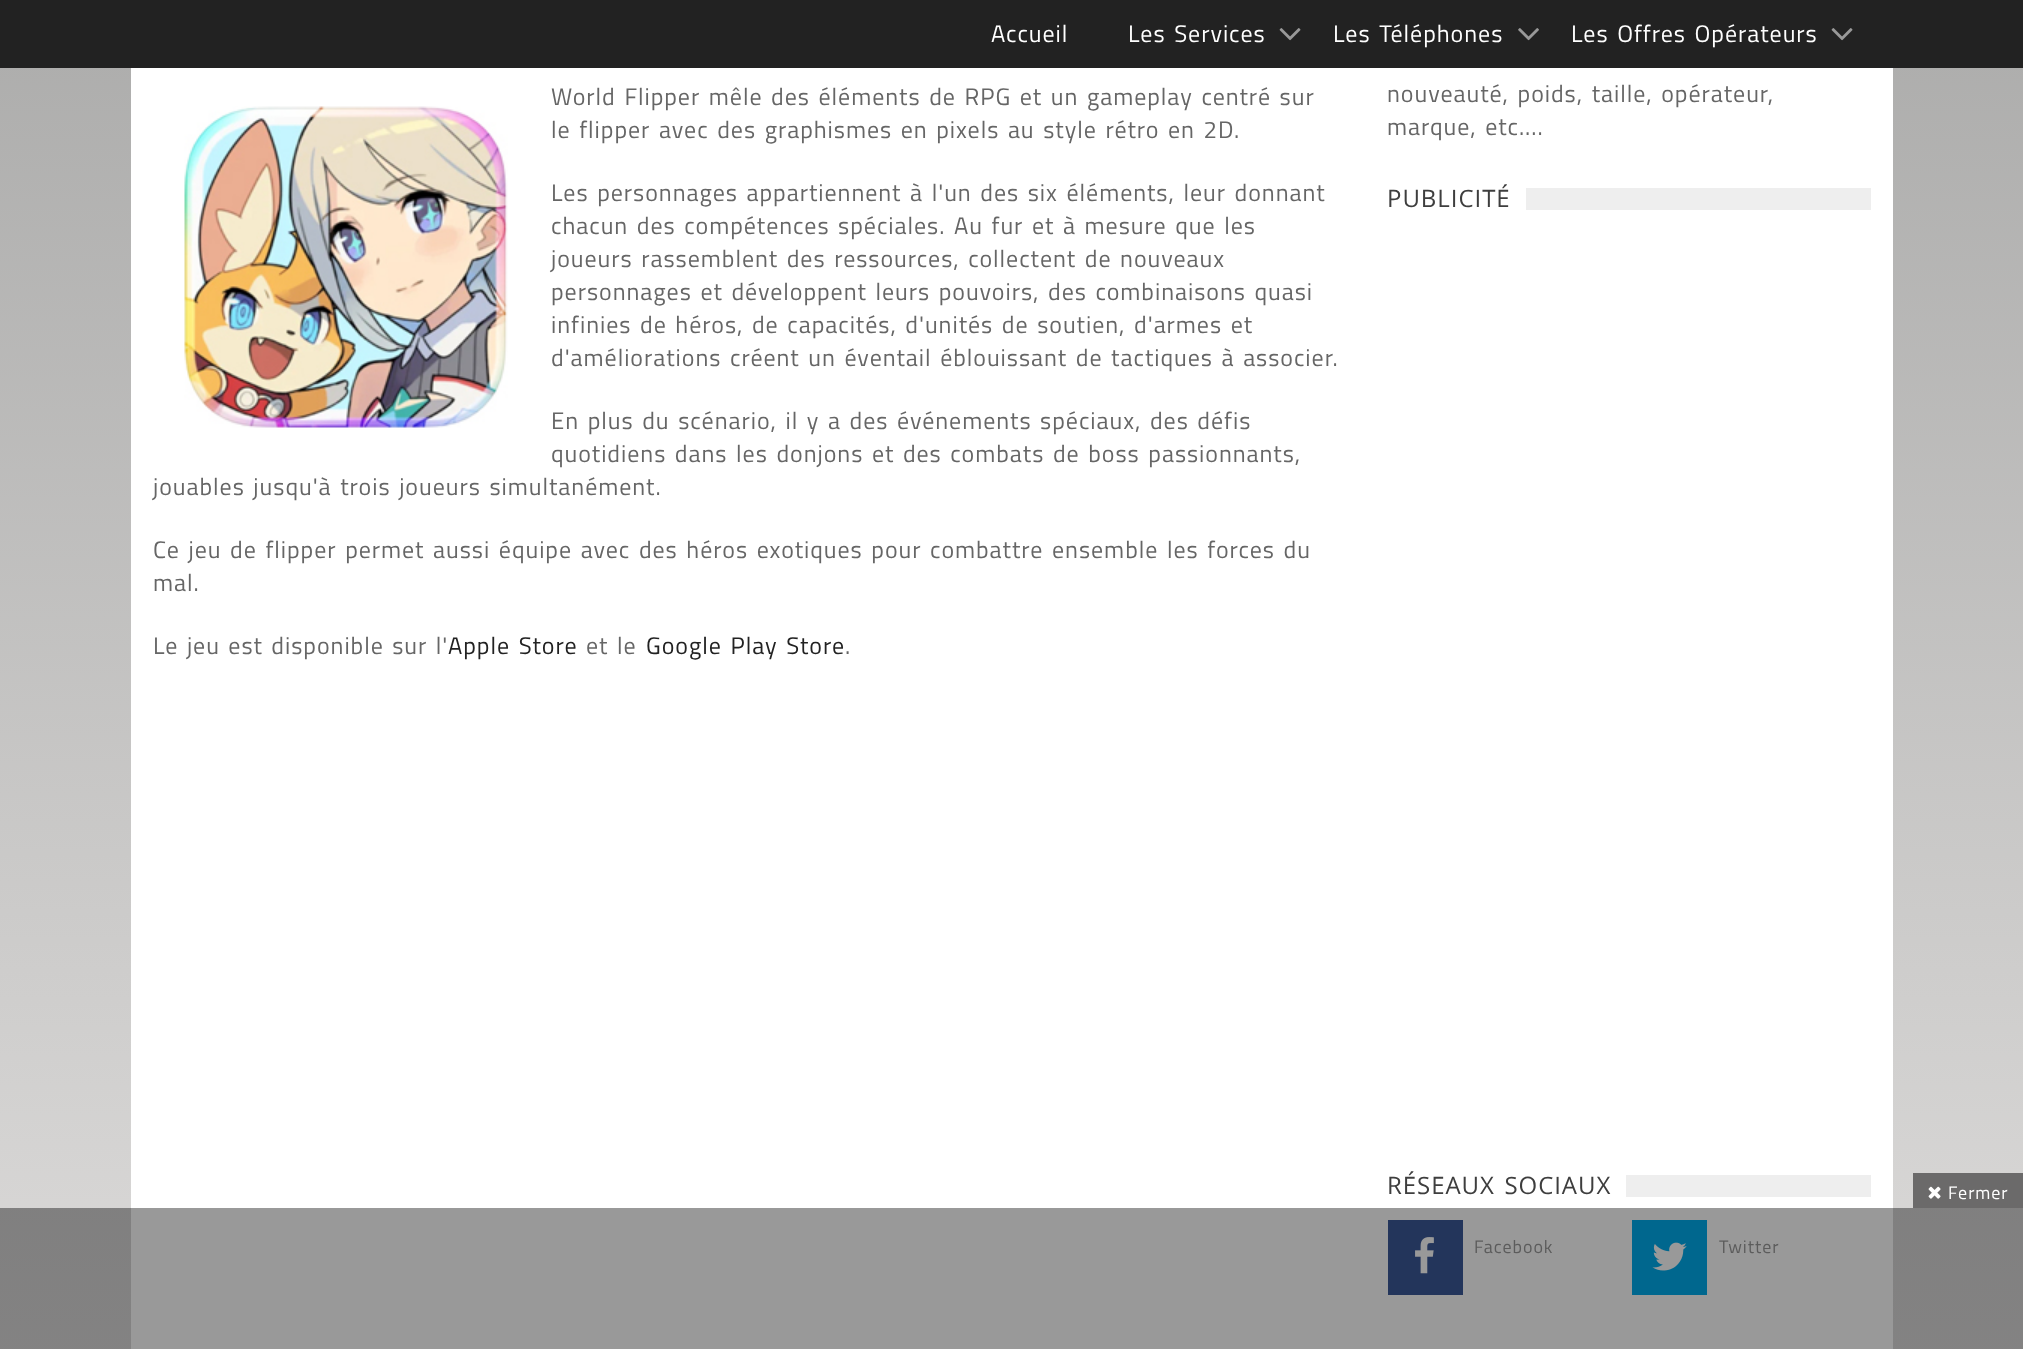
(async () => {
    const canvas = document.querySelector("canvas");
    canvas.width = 2023;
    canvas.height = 1349;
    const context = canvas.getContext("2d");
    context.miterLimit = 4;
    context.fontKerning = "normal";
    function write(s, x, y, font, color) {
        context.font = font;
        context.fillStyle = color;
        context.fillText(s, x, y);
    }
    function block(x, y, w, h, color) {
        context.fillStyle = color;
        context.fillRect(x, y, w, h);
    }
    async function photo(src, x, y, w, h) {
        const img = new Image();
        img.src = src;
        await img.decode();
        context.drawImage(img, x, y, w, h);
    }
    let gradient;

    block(0, 0, 2023, 1349, "rgb(255, 255, 255)");
    block(0, 0, 2023, 68, "rgb(34, 34, 34)");
    context.letterSpacing = "0.95px";
    write("Accueil", 991, 42, "24px Titillium Web", "rgb(255, 255, 255)");
    context.wordSpacing = "2.4px";
    write("Les Services", 1128, 42, "24px Titillium Web", "rgb(255, 255, 255)");
    await photo("media/1.png", 1279, 28, 22, 13);
    write("Les Téléphones", 1333, 42, "24px Titillium Web", "rgb(255, 255, 255)");
    await photo("media/2.png", 1518, 28, 21, 13);
    write("Les Offres Opérateurs", 1571, 42, "24px Titillium Web", "rgb(255, 255, 255)");
    await photo("media/1.png", 1831, 28, 22, 13);
    gradient = context.createLinearGradient(1012, -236, 1012, 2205);
    gradient.addColorStop(0, "rgb(164, 164, 163)");
    gradient.addColorStop(1, "rgb(249, 247, 246)");
    context.fillStyle = gradient;
    context.fillRect(0, 68, 2023, 1140);
    gradient = context.createLinearGradient(1012, -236, 1012, 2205);
    gradient.addColorStop(0, "rgb(98, 98, 98)");
    gradient.addColorStop(1, "rgb(149, 148, 148)");
    context.fillStyle = gradient;
    context.fillRect(0, 1208, 2023, 141);
    block(131, 68, 1762, 1140, "rgb(255, 255, 255)");
    block(131, 1208, 1762, 141, "rgb(153, 153, 153)");
    await photo("media/3.png", 184, 106, 324, 322);
    write("World Flipper mêle des éléments de RPG et un gameplay centré sur", 551, 105, "24px Titillium Web", "rgb(102, 102, 102)");
    write("le flipper avec des graphismes en pixels au style rétro en 2D.", 551, 138, "24px Titillium Web", "rgb(102, 102, 102)");
    write("Les personnages appartiennent à l'un des six éléments, leur donnant", 551, 201, "24px Titillium Web", "rgb(102, 102, 102)");
    write("chacun des compétences spéciales. Au fur et à mesure que les", 551, 234, "24px Titillium Web", "rgb(102, 102, 102)");
    write("joueurs rassemblent des ressources, collectent de nouveaux", 551, 267, "24px Titillium Web", "rgb(102, 102, 102)");
    write("personnages et développent leurs pouvoirs, des combinaisons quasi", 551, 300, "24px Titillium Web", "rgb(102, 102, 102)");
    write("infinies de héros, de capacités, d'unités de soutien, d'armes et", 551, 333, "24px Titillium Web", "rgb(102, 102, 102)");
    write("d'améliorations créent un éventail éblouissant de tactiques à associer.", 551, 366, "24px Titillium Web", "rgb(102, 102, 102)");
    write("En plus du scénario, il y a des événements spéciaux, des défis", 551, 429, "24px Titillium Web", "rgb(102, 102, 102)");
    write("quotidiens dans les donjons et des combats de boss passionnants,", 551, 462, "24px Titillium Web", "rgb(102, 102, 102)");
    write("jouables jusqu'à trois joueurs simultanément.", 153, 495, "24px Titillium Web", "rgb(102, 102, 102)");
    write("Ce jeu de flipper permet aussi équipe avec des héros exotiques pour combattre ensemble les forces du", 153, 558, "24px Titillium Web", "rgb(102, 102, 102)");
    context.wordSpacing = "0px";
    write("mal.", 153, 591, "24px Titillium Web", "rgb(102, 102, 102)");
    context.wordSpacing = "2.25px";
    write("Le jeu est disponible sur l'", 153, 654, "24px Titillium Web", "rgb(102, 102, 102)");
    context.wordSpacing = "2.4px";
    write("Apple Store", 448, 654, "24px Titillium Web", "rgb(34, 34, 34)");
    write("et le", 586, 654, "24px Titillium Web", "rgb(102, 102, 102)");
    write("Google Play Store", 646, 654, "24px Titillium Web", "rgb(34, 34, 34)");
    context.wordSpacing = "0px";
    write(".", 845, 654, "24px Titillium Web", "rgb(102, 102, 102)");
    context.wordSpacing = "2.4px";
    write("nouveauté, poids, taille, opérateur,", 1387, 102, "24px Titillium Web", "rgb(102, 102, 102)");
    write("marque, etc....", 1387, 135, "24px Titillium Web", "rgb(102, 102, 102)");
    block(1526, 188, 345, 22, "rgb(238, 238, 238)");
    context.wordSpacing = "0px";
    write("PUBLICITÉ", 1387, 207, "24px Open Sans", "rgb(62, 62, 62)");
    block(1626, 1175, 245, 22, "rgb(238, 238, 238)");
    context.wordSpacing = "2.4px";
    write("RÉSEAUX SOCIAUX", 1387, 1194, "24px Open Sans", "rgb(62, 62, 62)");
    block(1388, 1220, 75, 75, "rgb(35, 53, 91)");
    await photo("media/4.png", 1415, 1237, 19, 37);
    context.wordSpacing = "0px";
    write("Facebook", 1474, 1253, "18px Titillium Web", "rgb(92, 92, 92)");
    block(1632, 1220, 75, 75, "rgb(0, 103, 142)");
    await photo("media/5.png", 1652, 1242, 35, 29);
    write("Twitter", 1719, 1253, "18px Titillium Web", "rgb(92, 92, 92)");
    block(1913, 1173, 110, 35, "rgb(107, 106, 106)");
    await photo("media/6.png", 1928, 1186, 13, 13);
    write("Fermer", 1948, 1199, "18px Titillium Web", "rgb(255, 255, 255)");
})();
